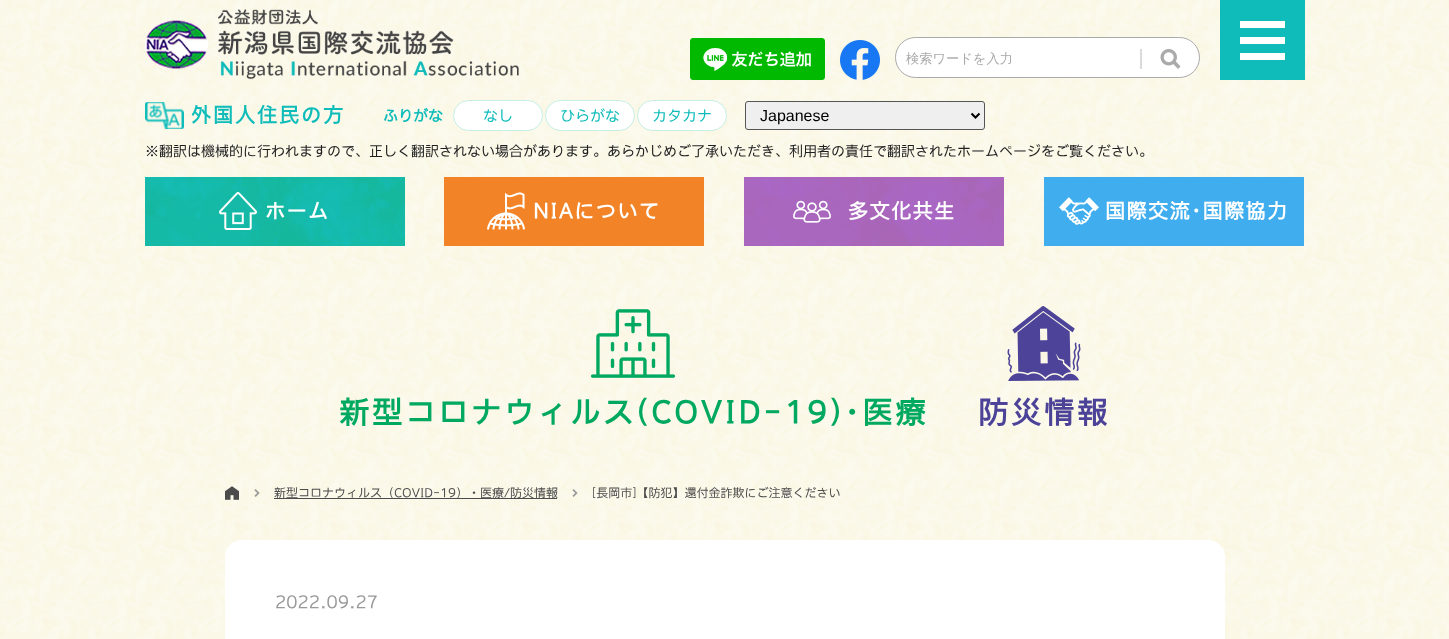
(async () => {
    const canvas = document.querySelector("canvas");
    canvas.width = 1449;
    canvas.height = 639;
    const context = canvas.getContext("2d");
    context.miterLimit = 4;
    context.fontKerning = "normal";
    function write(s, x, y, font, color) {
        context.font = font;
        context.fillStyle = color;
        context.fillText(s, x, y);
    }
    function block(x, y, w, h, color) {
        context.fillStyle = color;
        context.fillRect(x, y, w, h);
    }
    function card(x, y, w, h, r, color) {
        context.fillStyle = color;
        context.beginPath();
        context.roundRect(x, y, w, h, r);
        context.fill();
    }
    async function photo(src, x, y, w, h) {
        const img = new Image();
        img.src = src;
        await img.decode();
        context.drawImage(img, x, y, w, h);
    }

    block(0, 0, 1449, 639, "rgb(255, 255, 255)");
    await photo("media/1.png", 0, 0, 1449, 639);
    await photo("media/2.png", 145, 9, 374, 71);
    await photo("media/3.png", 690, 38, 135, 42);
    await photo("media/4.png", 840, 40, 40, 40);
    context.beginPath();
    context.roundRect(895.5, 37.5, 304, 40, 20);
    context.fill();
    context.strokeStyle = "rgb(170, 170, 170)";
    context.stroke();
    write("検索ワードを入力", 906, 63, "500 13.25px WenQuanYi Zen Hei", "rgb(170, 170, 170)");
    block(1140, 49, 2, 20, "rgb(218, 218, 218)");
    await photo("media/5.png", 1160, 49, 21, 20);
    block(1220, 0, 85, 80, "rgb(15, 188, 186)");
    block(1240, 37, 45, 7, "rgb(255, 255, 255)");
    block(1240, 21, 45, 7, "rgb(255, 255, 255)");
    block(1240, 53, 45, 7, "rgb(255, 255, 255)");
    await photo("media/6.png", 145, 102, 39, 27);
    context.letterSpacing = "2px";
    write("外国人住民の方", 191, 122, "bold 20px 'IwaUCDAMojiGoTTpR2'", "rgb(15, 188, 186)");
    context.letterSpacing = "0px";
    write("ふりがな", 383, 121, "bold 15px 'IwaUCDAMojiGoTTpR2'", "rgb(15, 188, 186)");
    context.fillStyle = "rgb(255, 255, 255)";
    context.beginPath();
    context.roundRect(453.5, 100.5, 89, 30, 15);
    context.fill();
    context.strokeStyle = "rgb(197, 239, 228)";
    context.stroke();
    write("なし", 483, 121, "15px 'IwaUCDAMojiGoTTpR2'", "rgb(15, 188, 186)");
    context.fillStyle = "rgb(255, 255, 255)";
    context.beginPath();
    context.roundRect(545.5, 100.5, 89, 30, 15);
    context.fill();
    context.stroke();
    write("ひらがな", 560, 121, "15px 'IwaUCDAMojiGoTTpR2'", "rgb(15, 188, 186)");
    context.fillStyle = "rgb(255, 255, 255)";
    context.beginPath();
    context.roundRect(637.5, 100.5, 89, 30, 15);
    context.fill();
    context.stroke();
    write("カタカナ", 652, 121, "15px 'IwaUCDAMojiGoTTpR2'", "rgb(15, 188, 186)");
    context.fillStyle = "rgb(239, 239, 239)";
    context.beginPath();
    context.roundRect(745.5, 101.5, 239, 28, 2.5);
    context.fill();
    context.strokeStyle = "rgb(85, 85, 85)";
    context.stroke();
    context.beginPath();
    context.moveTo(971.5, 113.5);
    context.lineTo(975.5, 117.5);
    context.lineTo(979.5, 113.5);
    context.strokeStyle = "rgb(0, 0, 0)";
    context.lineWidth = 2;
    context.stroke();
    write("Japanese", 760, 121, "16px Liberation Sans", "rgb(0, 0, 0)");
    write("※翻訳は機械的に行われますので、正しく翻訳されない場合があります。あらかじめご了承いただき、利用者の責任で翻訳されたホームページをご覧ください。", 145, 156, "14px 'IwaUCDAMojiGoTTpR2'", "rgb(31, 31, 31)");
    await photo("media/7.png", 145, 177, 260, 69);
    await photo("media/8.png", 219, 192, 38, 38);
    context.letterSpacing = "1.5px";
    write("ホーム", 265, 218, "bold 20px 'IwaUCDAMojiGoTTpR2'", "rgb(255, 255, 255)");
    block(444, 177, 260, 69, "rgb(242, 131, 39)");
    await photo("media/9.png", 487, 192, 38, 38);
    write("NIAについて", 533, 218, "bold 20px 'IwaUCDAMojiGoTTpR2'", "rgb(255, 255, 255)");
    await photo("media/10.png", 744, 177, 260, 69);
    await photo("media/11.png", 793, 200, 38, 23);
    write("多文化共生", 848, 218, "bold 20px 'IwaUCDAMojiGoTTpR2'", "rgb(255, 255, 255)");
    block(1044, 177, 260, 69, "rgb(64, 173, 238)");
    await photo("media/12.png", 1059, 197, 40, 28);
    write("国際交流･国際協力", 1105, 218, "bold 20px 'IwaUCDAMojiGoTTpR2'", "rgb(255, 255, 255)");
    await photo("media/13.png", 590, 309, 86, 69);
    context.letterSpacing = "3px";
    write("新型コロナウィルス(COVID-19)･医療", 339, 423, "bold 30px 'IwaUCDAMojiGoTTpR2'", "rgb(0, 169, 95)");
    await photo("media/14.png", 1007, 306, 74, 75);
    write("防災情報", 978, 423, "bold 30px 'IwaUCDAMojiGoTTpR2'", "rgb(76, 67, 152)");
    await photo("media/15.png", 225, 486, 14, 14);
    await photo("media/16.png", 254, 489, 6, 8);
    block(274, 498, 283, 1, "rgb(75, 75, 75)");
    context.letterSpacing = "0px";
    write("新型コロナウィルス（COVID-19）・医療/防災情報", 274, 497, "12px 'IwaUCDAMojiGoTTpR2'", "rgb(75, 75, 75)");
    await photo("media/17.png", 572, 489, 6, 8);
    write("[長岡市]【防犯】還付金詐欺にご注意ください", 592, 497, "12px 'IwaUCDAMojiGoTTpR2'", "rgb(75, 75, 75)");
    card(225, 540, 1000, 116, 17, "rgb(255, 255, 255)");
    write("2022.09.27", 275, 608, "17px 'IwaUCDAMojiGoTTpR2'", "rgb(153, 153, 153)");
})();
